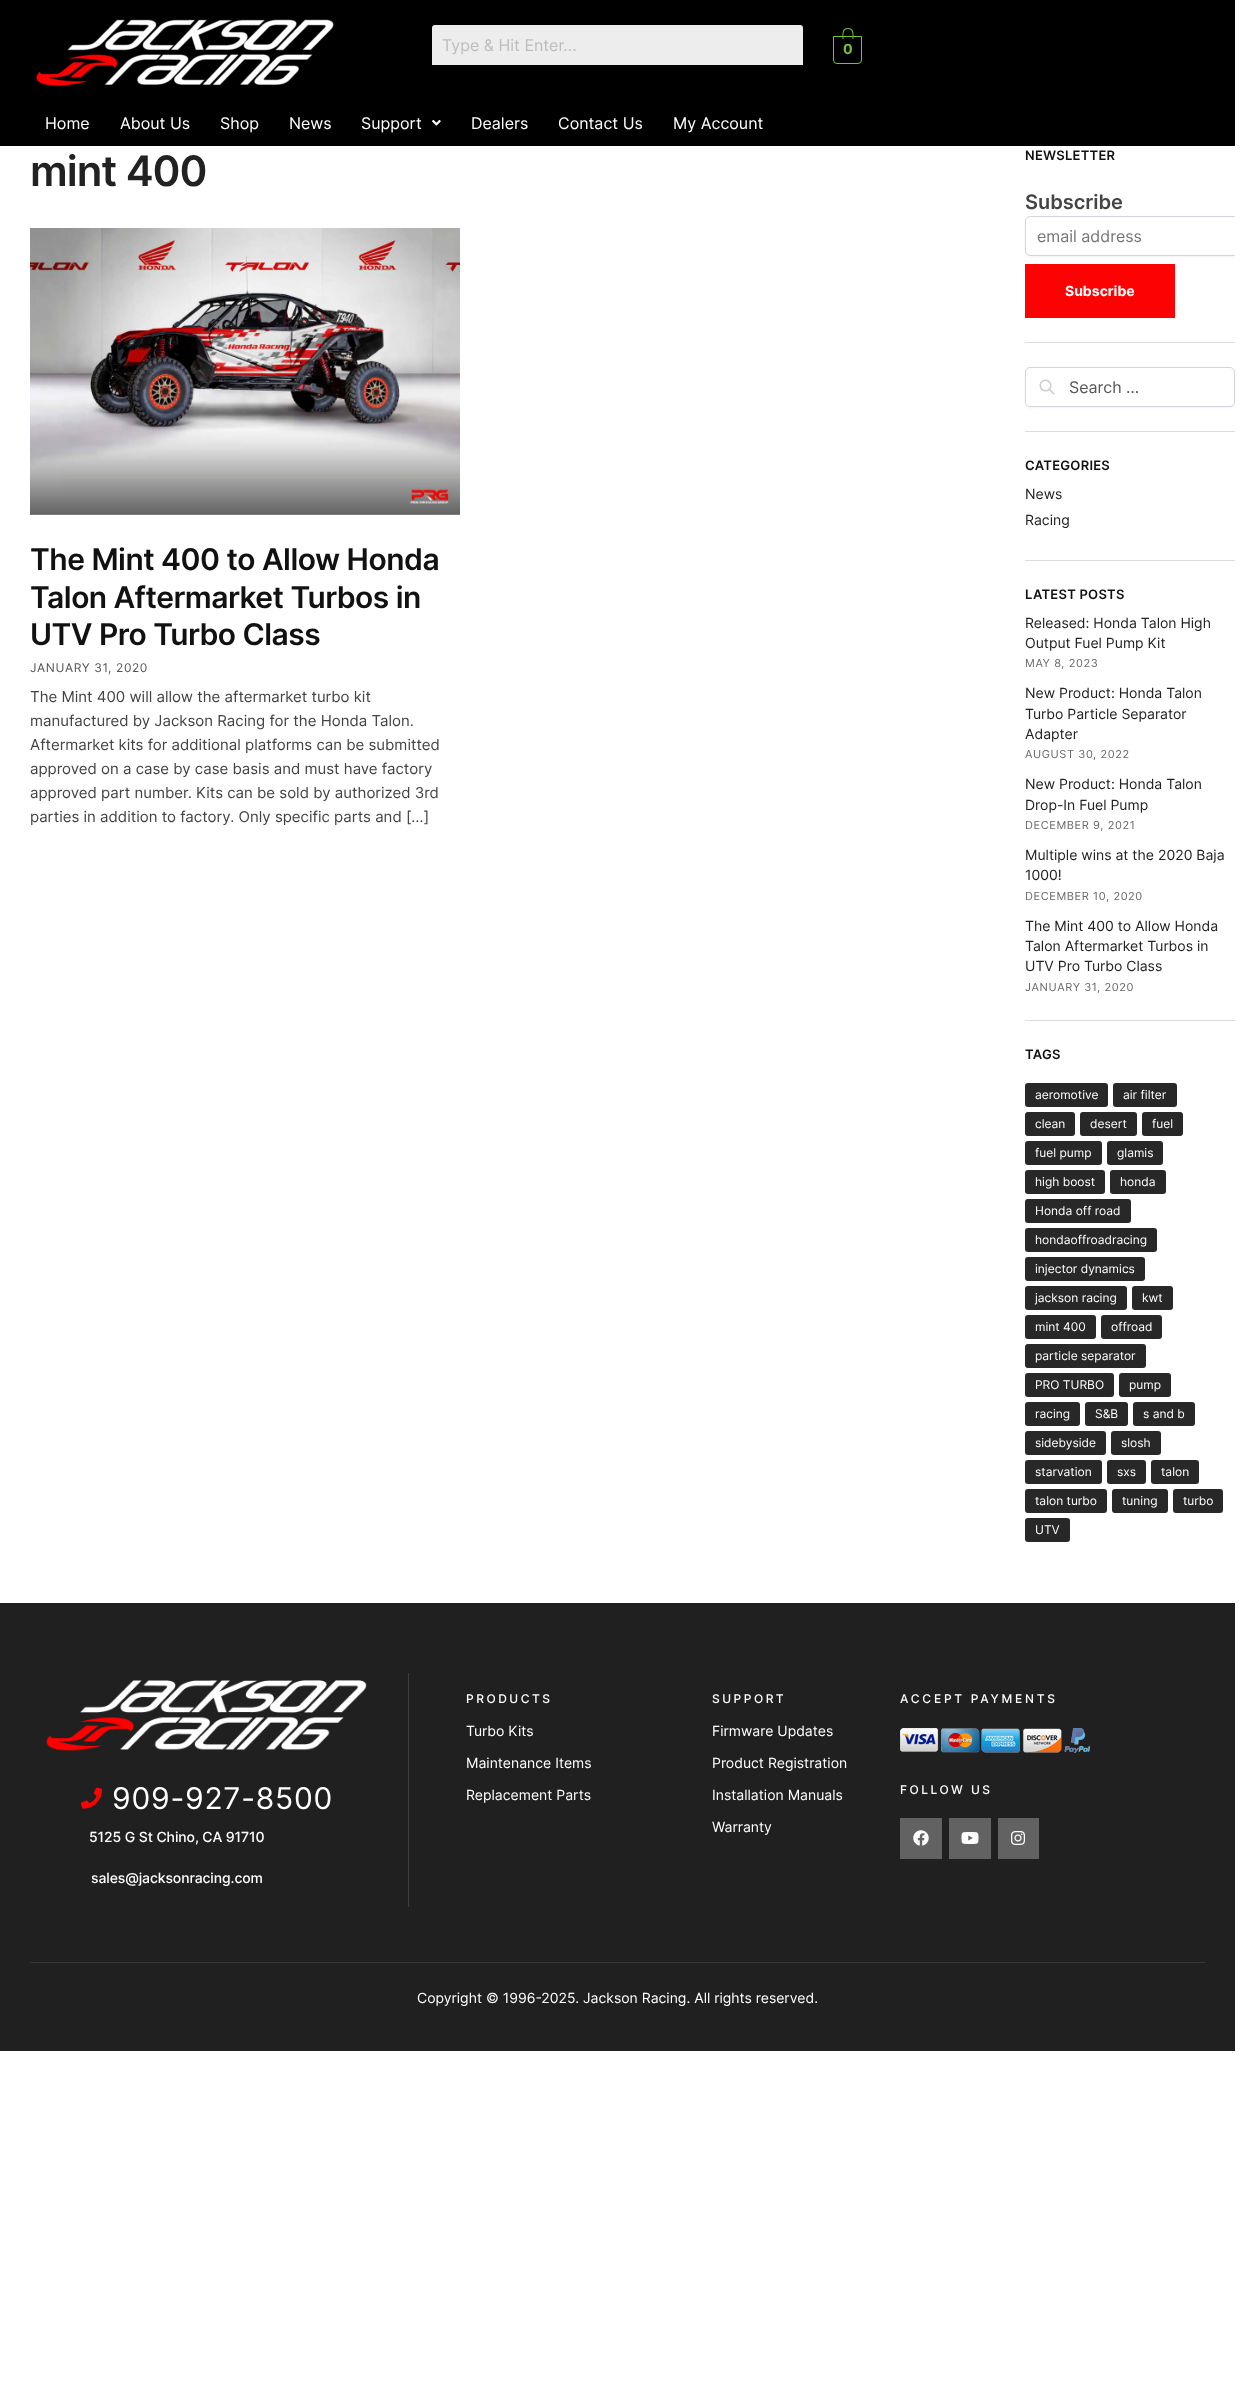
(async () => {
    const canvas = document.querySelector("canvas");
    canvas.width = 1250;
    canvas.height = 2386;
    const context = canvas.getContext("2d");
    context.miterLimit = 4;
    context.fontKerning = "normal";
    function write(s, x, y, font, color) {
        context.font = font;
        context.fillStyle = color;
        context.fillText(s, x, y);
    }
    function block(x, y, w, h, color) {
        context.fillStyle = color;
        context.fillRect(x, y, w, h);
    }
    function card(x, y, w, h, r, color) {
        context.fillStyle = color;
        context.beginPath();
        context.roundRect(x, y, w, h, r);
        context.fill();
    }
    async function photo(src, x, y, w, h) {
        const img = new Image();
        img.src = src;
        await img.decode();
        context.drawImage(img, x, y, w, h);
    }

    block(0, 0, 1250, 2386, "rgb(255, 255, 255)");
    block(0, 0, 1235, 146, "rgb(0, 0, 0)");
    await photo("media/1.png", 36, 19, 298, 67);
    context.fillStyle = "rgb(237, 237, 237)";
    context.beginPath();
    context.roundRect(432, 25, 371, 40, [3, 3, 0, 0]);
    context.fill();
    write("Type & Hit Enter...", 442, 51, "16px Inter", "rgb(189, 189, 189)");
    context.beginPath();
    context.roundRect(833.5, 36.5, 28, 27, [0, 0, 3.5, 3.5]);
    context.strokeStyle = "rgb(117, 195, 44)";
    context.stroke();
    context.fillStyle = "rgb(117, 195, 44)";
    context.beginPath();
    context.moveTo(848, 28);
    context.bezierCurveTo(854.5, 28, 853.5, 34.5, 853.5, 39);
    context.lineTo(842.5, 39);
    context.bezierCurveTo(842.5, 34.5, 841.5, 28, 848, 28);
    context.closePath();
    context.moveTo(848, 29);
    context.bezierCurveTo(853.5, 29, 852.5, 35.5, 852.5, 39);
    context.lineTo(843.5, 39);
    context.bezierCurveTo(843.5, 35.5, 842.5, 29, 848, 29);
    context.closePath();
    context.fill("evenodd");
    write("0", 843, 54, "bold 14px Inter", "rgb(117, 195, 44)");
    write("Home", 45, 129, "16px Inter", "rgb(255, 255, 255)");
    write("About Us", 120, 129, "16px Inter", "rgb(255, 255, 255)");
    write("Shop", 220, 129, "16px Inter", "rgb(255, 255, 255)");
    write("News", 289, 129, "16px Inter", "rgb(255, 255, 255)");
    write("Support", 361, 129, "16px Inter", "rgb(255, 255, 255)");
    await photo("media/2.png", 432, 120, 9, 6);
    write("Dealers", 471, 129, "16px Inter", "rgb(255, 255, 255)");
    write("Contact Us", 558, 129, "16px Inter", "rgb(255, 255, 255)");
    write("My Account", 673, 129, "16px Inter", "rgb(255, 255, 255)");
    context.letterSpacing = "-1px";
    write("mint 400", 30, 186, "600 42px Inter", "rgb(34, 34, 34)");
    await photo("media/3.png", 30, 228, 430, 287);
    context.letterSpacing = "-0.5px";
    write("The Mint 400 to Allow Honda", 30, 570, "600 30px Inter", "rgb(17, 17, 17)");
    write("Talon Aftermarket Turbos in", 30, 608, "600 30px Inter", "rgb(17, 17, 17)");
    write("UTV Pro Turbo Class", 30, 645, "600 30px Inter", "rgb(17, 17, 17)");
    context.letterSpacing = "0.6px";
    write("JANUARY 31, 2020", 30, 672, "12px Inter", "rgb(85, 85, 85)");
    context.letterSpacing = "0px";
    write("The Mint 400 will allow the aftermarket turbo kit", 30, 702, "15px Inter", "rgb(68, 68, 68)");
    write("manufactured by Jackson Racing for the Honda Talon.", 30, 726, "15px Inter", "rgb(68, 68, 68)");
    write("Aftermarket kits for additional platforms can be submitted", 30, 750, "15px Inter", "rgb(68, 68, 68)");
    write("approved on a case by case basis and must have factory", 30, 774, "15px Inter", "rgb(68, 68, 68)");
    write("approved part number. Kits can be sold by authorized 3rd", 30, 798, "15px Inter", "rgb(68, 68, 68)");
    write("parties in addition to factory. Only specific parts and […]", 30, 822, "15px Inter", "rgb(68, 68, 68)");
    block(1025, 342, 210, 1, "rgb(221, 221, 221)");
    context.letterSpacing = "0.25px";
    write("NEWSLETTER", 1025, 160, "600 13px Inter", "rgb(17, 17, 17)");
    context.letterSpacing = "0px";
    write("Subscribe", 1025, 209, "600 20px Inter", "rgb(68, 68, 68)");
    context.fillStyle = "rgba(0, 0, 0, 0.05)";
    context.filter = "blur(1px)";
    context.beginPath();
    context.roundRect(1025, 217, 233, 40, 5);
    context.fill();
    context.filter = "none";
    context.fillStyle = "rgb(255, 255, 255)";
    context.beginPath();
    context.roundRect(1025.5, 216.5, 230, 39, 4.5);
    context.fill();
    context.strokeStyle = "rgb(210, 214, 220)";
    context.stroke();
    write("email address", 1037, 242, "16px Inter", "rgb(117, 117, 117)");
    block(1025, 264, 150, 54, "rgb(253, 2, 2)");
    write("Subscribe", 1065, 296, "bold 14px Inter", "rgb(255, 255, 255)");
    block(1025, 431, 210, 1, "rgb(221, 221, 221)");
    context.fillStyle = "rgba(0, 0, 0, 0.05)";
    context.filter = "blur(1px)";
    context.beginPath();
    context.roundRect(1025, 368, 210, 40, 5);
    context.fill();
    context.filter = "none";
    context.fillStyle = "rgb(255, 255, 255)";
    context.beginPath();
    context.roundRect(1025.5, 367.5, 209, 39, 4.5);
    context.fill();
    context.stroke();
    await photo("media/4.png", 1039, 379, 16, 16);
    write("Search …", 1069, 393, "16px Inter", "rgb(85, 85, 85)");
    block(1025, 560, 210, 1, "rgb(221, 221, 221)");
    context.letterSpacing = "0.25px";
    write("CATEGORIES", 1025, 470, "600 13px Inter", "rgb(17, 17, 17)");
    context.letterSpacing = "0px";
    write("News", 1025, 499, "14px Inter", "rgb(34, 34, 34)");
    write("Racing", 1025, 525, "14px Inter", "rgb(34, 34, 34)");
    block(1025, 1020, 210, 1, "rgb(221, 221, 221)");
    context.letterSpacing = "0.25px";
    write("LATEST POSTS", 1025, 599, "600 13px Inter", "rgb(17, 17, 17)");
    context.letterSpacing = "0px";
    write("Released: Honda Talon High", 1025, 628, "14px Inter", "rgb(34, 34, 34)");
    write("Output Fuel Pump Kit", 1025, 648, "14px Inter", "rgb(34, 34, 34)");
    context.letterSpacing = "0.6px";
    write("MAY 8, 2023", 1025, 667, "11px Inter", "rgb(105, 105, 105)");
    context.letterSpacing = "0px";
    write("New Product: Honda Talon", 1025, 698, "14px Inter", "rgb(34, 34, 34)");
    write("Turbo Particle Separator", 1025, 719, "14px Inter", "rgb(34, 34, 34)");
    write("Adapter", 1025, 739, "14px Inter", "rgb(34, 34, 34)");
    context.letterSpacing = "0.6px";
    write("AUGUST 30, 2022", 1025, 758, "11px Inter", "rgb(105, 105, 105)");
    context.letterSpacing = "0px";
    write("New Product: Honda Talon", 1025, 789, "14px Inter", "rgb(34, 34, 34)");
    write("Drop-In Fuel Pump", 1025, 810, "14px Inter", "rgb(34, 34, 34)");
    context.letterSpacing = "0.6px";
    write("DECEMBER 9, 2021", 1025, 829, "11px Inter", "rgb(105, 105, 105)");
    context.letterSpacing = "0px";
    write("Multiple wins at the 2020 Baja", 1025, 860, "14px Inter", "rgb(34, 34, 34)");
    write("1000!", 1025, 880, "14px Inter", "rgb(34, 34, 34)");
    context.letterSpacing = "0.6px";
    write("DECEMBER 10, 2020", 1025, 900, "11px Inter", "rgb(105, 105, 105)");
    context.letterSpacing = "0px";
    write("The Mint 400 to Allow Honda", 1025, 931, "14px Inter", "rgb(34, 34, 34)");
    write("Talon Aftermarket Turbos in", 1025, 951, "14px Inter", "rgb(34, 34, 34)");
    write("UTV Pro Turbo Class", 1025, 971, "14px Inter", "rgb(34, 34, 34)");
    context.letterSpacing = "0.6px";
    write("JANUARY 31, 2020", 1025, 991, "11px Inter", "rgb(105, 105, 105)");
    context.letterSpacing = "0.25px";
    write("TAGS", 1025, 1059, "600 13px Inter", "rgb(17, 17, 17)");
    card(1025, 1083, 83, 24, 3, "rgb(40, 40, 40)");
    context.letterSpacing = "0px";
    write("aeromotive", 1035, 1099, "12px Inter", "rgb(255, 255, 255)");
    card(1113, 1083, 64, 24, 3, "rgb(40, 40, 40)");
    write("air filter", 1123, 1099, "12px Inter", "rgb(255, 255, 255)");
    card(1025, 1112, 50, 24, 3, "rgb(40, 40, 40)");
    write("clean", 1035, 1128, "12px Inter", "rgb(255, 255, 255)");
    card(1080, 1112, 57, 24, 3, "rgb(40, 40, 40)");
    write("desert", 1090, 1128, "12px Inter", "rgb(255, 255, 255)");
    card(1142, 1112, 41, 24, 3, "rgb(40, 40, 40)");
    write("fuel", 1152, 1128, "12px Inter", "rgb(255, 255, 255)");
    card(1025, 1141, 77, 24, 3, "rgb(40, 40, 40)");
    write("fuel pump", 1035, 1157, "12px Inter", "rgb(255, 255, 255)");
    card(1107, 1141, 56, 24, 3, "rgb(40, 40, 40)");
    write("glamis", 1117, 1157, "12px Inter", "rgb(255, 255, 255)");
    card(1025, 1170, 80, 24, 3, "rgb(40, 40, 40)");
    write("high boost", 1035, 1186, "12px Inter", "rgb(255, 255, 255)");
    card(1110, 1170, 56, 24, 3, "rgb(40, 40, 40)");
    write("honda", 1120, 1186, "12px Inter", "rgb(255, 255, 255)");
    card(1025, 1199, 106, 24, 3, "rgb(40, 40, 40)");
    write("Honda off road", 1035, 1215, "12px Inter", "rgb(255, 255, 255)");
    card(1025, 1228, 132, 24, 3, "rgb(40, 40, 40)");
    write("hondaoffroadracing", 1035, 1244, "12px Inter", "rgb(255, 255, 255)");
    card(1025, 1257, 120, 24, 3, "rgb(40, 40, 40)");
    write("injector dynamics", 1035, 1273, "12px Inter", "rgb(255, 255, 255)");
    card(1025, 1286, 102, 24, 3, "rgb(40, 40, 40)");
    write("jackson racing", 1035, 1302, "12px Inter", "rgb(255, 255, 255)");
    card(1132, 1286, 41, 24, 3, "rgb(40, 40, 40)");
    write("kwt", 1142, 1302, "12px Inter", "rgb(255, 255, 255)");
    card(1025, 1315, 71, 24, 3, "rgb(40, 40, 40)");
    write("mint 400", 1035, 1331, "12px Inter", "rgb(255, 255, 255)");
    card(1101, 1315, 61, 24, 3, "rgb(40, 40, 40)");
    write("offroad", 1111, 1331, "12px Inter", "rgb(255, 255, 255)");
    card(1025, 1344, 121, 24, 3, "rgb(40, 40, 40)");
    write("particle separator", 1035, 1360, "12px Inter", "rgb(255, 255, 255)");
    card(1025, 1373, 89, 24, 3, "rgb(40, 40, 40)");
    write("PRO TURBO", 1035, 1389, "12px Inter", "rgb(255, 255, 255)");
    card(1119, 1373, 52, 24, 3, "rgb(40, 40, 40)");
    write("pump", 1129, 1389, "12px Inter", "rgb(255, 255, 255)");
    card(1025, 1402, 55, 24, 3, "rgb(40, 40, 40)");
    write("racing", 1035, 1418, "12px Inter", "rgb(255, 255, 255)");
    card(1085, 1402, 43, 24, 3, "rgb(40, 40, 40)");
    write("S&B", 1095, 1418, "12px Inter", "rgb(255, 255, 255)");
    card(1133, 1402, 62, 24, 3, "rgb(40, 40, 40)");
    write("s and b", 1143, 1418, "12px Inter", "rgb(255, 255, 255)");
    card(1025, 1431, 81, 24, 3, "rgb(40, 40, 40)");
    write("sidebyside", 1035, 1447, "12px Inter", "rgb(255, 255, 255)");
    card(1111, 1431, 50, 24, 3, "rgb(40, 40, 40)");
    write("slosh", 1121, 1447, "12px Inter", "rgb(255, 255, 255)");
    card(1025, 1460, 77, 24, 3, "rgb(40, 40, 40)");
    write("starvation", 1035, 1476, "12px Inter", "rgb(255, 255, 255)");
    card(1107, 1460, 39, 24, 3, "rgb(40, 40, 40)");
    write("sxs", 1117, 1476, "12px Inter", "rgb(255, 255, 255)");
    card(1151, 1460, 48, 24, 3, "rgb(40, 40, 40)");
    write("talon", 1161, 1476, "12px Inter", "rgb(255, 255, 255)");
    card(1025, 1489, 82, 24, 3, "rgb(40, 40, 40)");
    write("talon turbo", 1035, 1505, "12px Inter", "rgb(255, 255, 255)");
    card(1112, 1489, 56, 24, 3, "rgb(40, 40, 40)");
    write("tuning", 1122, 1505, "12px Inter", "rgb(255, 255, 255)");
    card(1173, 1489, 50, 24, 3, "rgb(40, 40, 40)");
    write("turbo", 1183, 1505, "12px Inter", "rgb(255, 255, 255)");
    card(1025, 1518, 45, 24, 3, "rgb(40, 40, 40)");
    write("UTV", 1035, 1534, "12px Inter", "rgb(255, 255, 255)");
    block(1235, 216, 15, 189, "rgb(255, 255, 255)");
    block(0, 1603, 1235, 448, "rgb(32, 32, 32)");
    context.letterSpacing = "2.5px";
    write("PRODUCTS", 466, 1703, "500 12px Inter", "rgb(255, 255, 255)");
    context.letterSpacing = "0px";
    write("Turbo Kits", 466, 1736, "14px Inter", "rgb(255, 255, 255)");
    write("Maintenance Items", 466, 1768, "14px Inter", "rgb(255, 255, 255)");
    write("Replacement Parts", 466, 1800, "14px Inter", "rgb(255, 255, 255)");
    context.letterSpacing = "2.5px";
    write("SUPPORT", 712, 1703, "500 12px Inter", "rgb(255, 255, 255)");
    context.letterSpacing = "0px";
    write("Firmware Updates", 712, 1736, "14px Inter", "rgb(255, 255, 255)");
    write("Product Registration", 712, 1768, "14px Inter", "rgb(255, 255, 255)");
    write("Installation Manuals", 712, 1800, "14px Inter", "rgb(255, 255, 255)");
    write("Warranty", 712, 1832, "14px Inter", "rgb(255, 255, 255)");
    context.letterSpacing = "2.75px";
    write("ACCEPT PAYMENTS", 900, 1703, "500 12px Inter", "rgb(255, 255, 255)");
    await photo("media/5.png", 900, 1728, 190, 25);
    context.letterSpacing = "2.5px";
    write("FOLLOW US", 900, 1794, "500 12px Inter", "rgb(255, 255, 255)");
    block(900, 1818, 42, 41, "rgb(98, 98, 98)");
    await photo("media/6.png", 913, 1830, 16, 16);
    block(949, 1818, 42, 41, "rgb(98, 98, 98)");
    await photo("media/7.png", 961, 1832, 18, 12);
    block(998, 1818, 41, 41, "rgb(98, 98, 98)");
    await photo("media/8.png", 1011, 1831, 14, 14);
    block(408, 1673, 1, 234, "rgb(61, 61, 61)");
    await photo("media/9.png", 46, 1680, 321, 71);
    await photo("media/10.png", 81, 1787, 21, 22);
    context.letterSpacing = "0.75px";
    write("909-927-8500", 112, 1809, "30px Inter", "rgb(255, 255, 255)");
    context.letterSpacing = "-0.1px";
    write("5125 G St Chino, CA 91710", 89, 1842, "500 14px Inter", "rgb(255, 255, 255)");
    write("sales@jacksonracing.com", 91, 1883, "500 14px Inter", "rgb(255, 255, 255)");
    block(30, 1962, 1175, 1, "rgb(55, 55, 55)");
    context.letterSpacing = "0px";
    write("Copyright © 1996-2025. Jackson Racing. All rights reserved.", 417, 2003, "14px Inter", "rgb(255, 255, 255)");
})();
